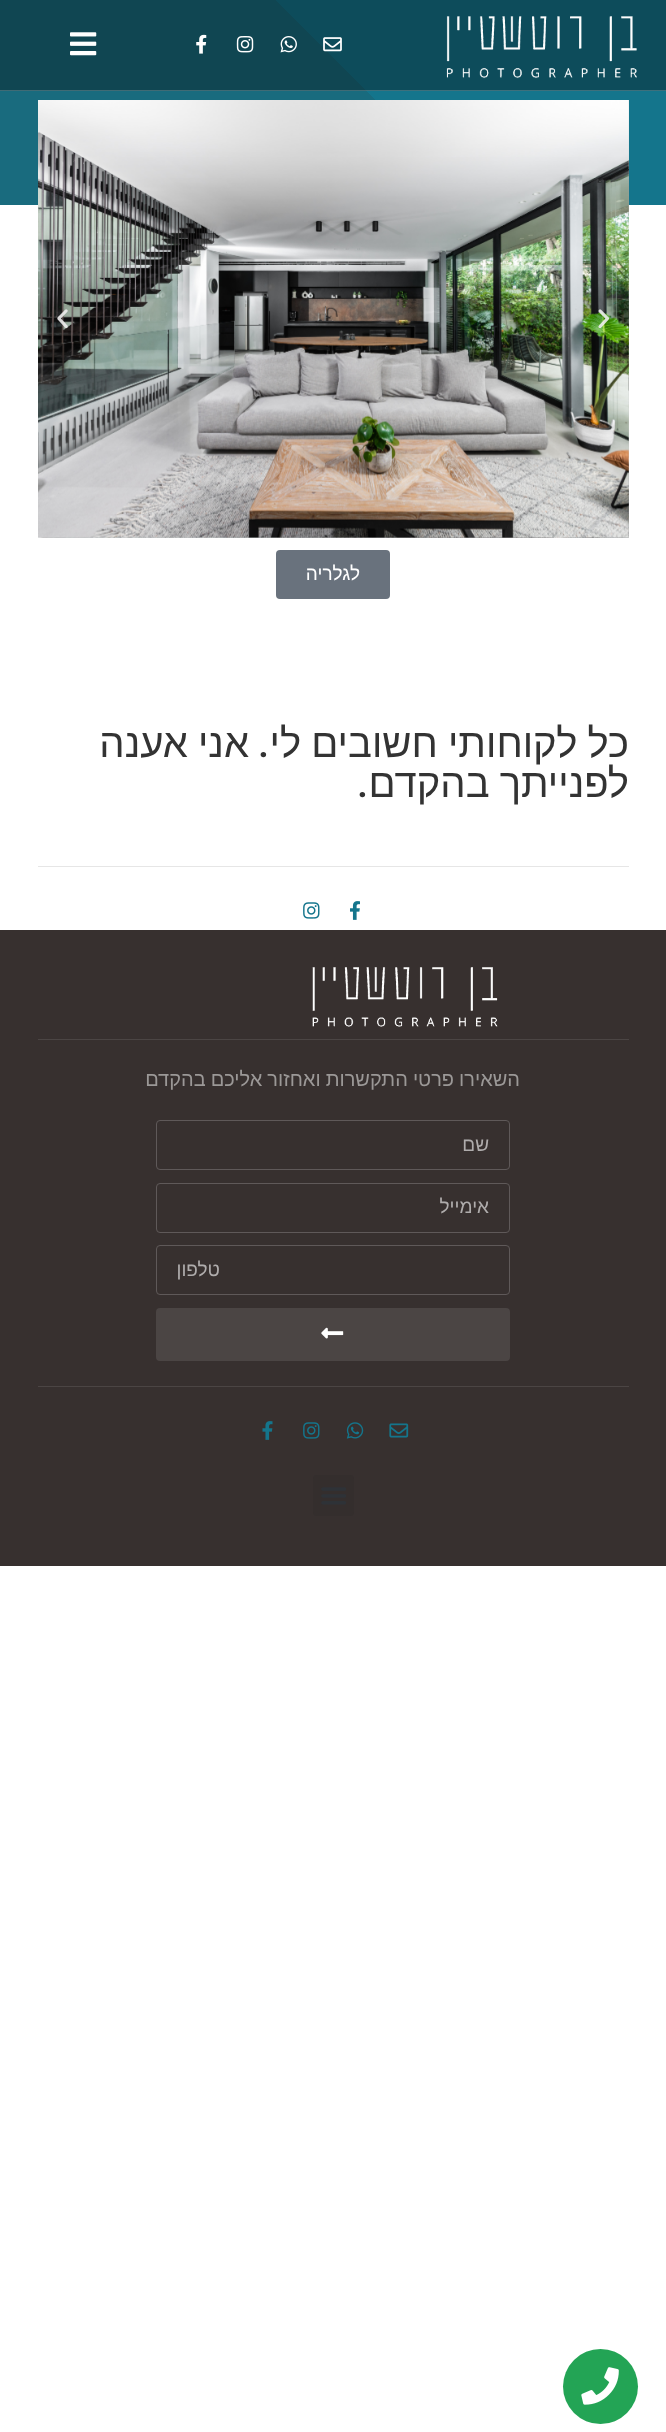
(async () => {
    const canvas = document.querySelector("canvas");
    canvas.width = 666;
    canvas.height = 2432;
    const context = canvas.getContext("2d");
    context.miterLimit = 4;
    context.fontKerning = "normal";
    function write(s, x, y, font, color) {
        context.font = font;
        context.fillStyle = color;
        context.fillText(s, x, y);
    }
    function block(x, y, w, h, color) {
        context.fillStyle = color;
        context.fillRect(x, y, w, h);
    }
    function card(x, y, w, h, r, color) {
        context.fillStyle = color;
        context.beginPath();
        context.roundRect(x, y, w, h, r);
        context.fill();
    }
    async function photo(src, x, y, w, h) {
        const img = new Image();
        img.src = src;
        await img.decode();
        context.drawImage(img, x, y, w, h);
    }
    let gradient;

    block(0, 0, 666, 2432, "rgb(255, 255, 255)");
    gradient = context.createLinearGradient(115, 320, 552, -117);
    gradient.addColorStop(0.55, "rgb(16, 70, 82)");
    gradient.addColorStop(0.55, "rgb(13, 76, 91)");
    context.fillStyle = gradient;
    context.fillRect(0, 0, 666, 90);
    await photo("media/1.png", 446, 16, 191, 63);
    await photo("media/2.png", 323, 37, 19, 15);
    await photo("media/3.png", 280, 36, 17, 17);
    await photo("media/4.png", 236, 36, 18, 17);
    await photo("media/5.png", 196, 34, 11, 20);
    await photo("media/6.png", 70, 32, 27, 24);
    gradient = context.createLinearGradient(115, 320, 552, -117);
    gradient.addColorStop(0.55, "rgb(25, 107, 126)");
    gradient.addColorStop(0.55, "rgb(20, 117, 140)");
    context.fillStyle = gradient;
    context.fillRect(0, 91, 666, 114);
    gradient = context.createLinearGradient(115, 320, 552, -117);
    gradient.addColorStop(0.55, "rgb(64, 107, 117)");
    gradient.addColorStop(0.55, "rgb(61, 112, 124)");
    context.fillStyle = gradient;
    context.fillRect(0, 90, 666, 1);
    await photo("media/7.png", 38, 100, 591, 438);
    await photo("media/8.png", 38, 100, 591, 438);
    await photo("media/9.png", 598, 309, 12, 20);
    await photo("media/10.png", 57, 309, 11, 20);
    card(276, 550, 114, 49, 4, "rgb(105, 114, 125)");
    context.direction = "rtl";
    write("לגלריה", 360, 580, "19px Liberation Sans", "rgb(255, 255, 255)");
    context.wordSpacing = "-1px";
    write("כל לקוחותי חשובים לי", 629, 757, "40px Liberation Sans", "rgb(51, 51, 51)");
    context.wordSpacing = "0px";
    write(".", 269, 757, "500 40px Roboto", "rgb(51, 51, 51)");
    context.wordSpacing = "-1px";
    write("אני אענה", 249, 757, "40px Liberation Sans", "rgb(51, 51, 51)");
    write("לפנייתך בהקדם", 629, 797, "40px Liberation Sans", "rgb(51, 51, 51)");
    context.wordSpacing = "0px";
    write(".", 368, 797, "500 40px Roboto", "rgb(51, 51, 51)");
    block(38, 866, 591, 1, "rgb(230, 230, 230)");
    await photo("media/11.png", 350, 901, 10, 19);
    await photo("media/12.png", 303, 902, 17, 17);
    block(0, 930, 666, 636, "rgb(55, 48, 47)");
    await photo("media/13.png", 312, 967, 186, 60);
    block(38, 1039, 591, 1, "rgb(75, 69, 68)");
    context.wordSpacing = "-0.5px";
    write("השאירו פרטי התקשרות ואחזור אליכם בהקדם", 520, 1086, "20px Liberation Sans", "rgb(155, 152, 151)");
    context.beginPath();
    context.roundRect(156.5, 1120.5, 353, 49, 3.5);
    context.strokeStyle = "rgb(95, 89, 89)";
    context.stroke();
    context.wordSpacing = "0px";
    write("שם", 489, 1151, "19px Liberation Sans", "rgb(175, 172, 172)");
    context.beginPath();
    context.roundRect(156.5, 1183.5, 353, 49, 3.5);
    context.stroke();
    write("אימייל", 489, 1213, "19px Liberation Sans", "rgb(175, 172, 172)");
    context.beginPath();
    context.roundRect(156.5, 1245.5, 353, 49, 3.5);
    context.stroke();
    write("טלפון", 220, 1276, "19px Liberation Sans", "rgb(175, 172, 172)");
    card(156, 1308, 354, 53, 4, "rgb(75, 69, 68)");
    await photo("media/14.png", 321, 1327, 23, 12);
    block(38, 1386, 591, 1, "rgb(75, 69, 68)");
    await photo("media/15.png", 389, 1423, 20, 15);
    await photo("media/16.png", 346, 1422, 18, 17);
    await photo("media/17.png", 303, 1422, 17, 17);
    await photo("media/18.png", 262, 1421, 11, 19);
    card(313, 1475, 41, 41, 4, "rgb(52, 46, 45)");
    await photo("media/19.png", 321, 1487, 25, 18);
    context.fillStyle = "rgb(35, 164, 85)";
    context.beginPath();
    context.arc(600.5, 2386.5, 37.5, 0, Math.PI * 2);
    context.fill();
    await photo("media/20.png", 581, 2367, 38, 38);
})();
